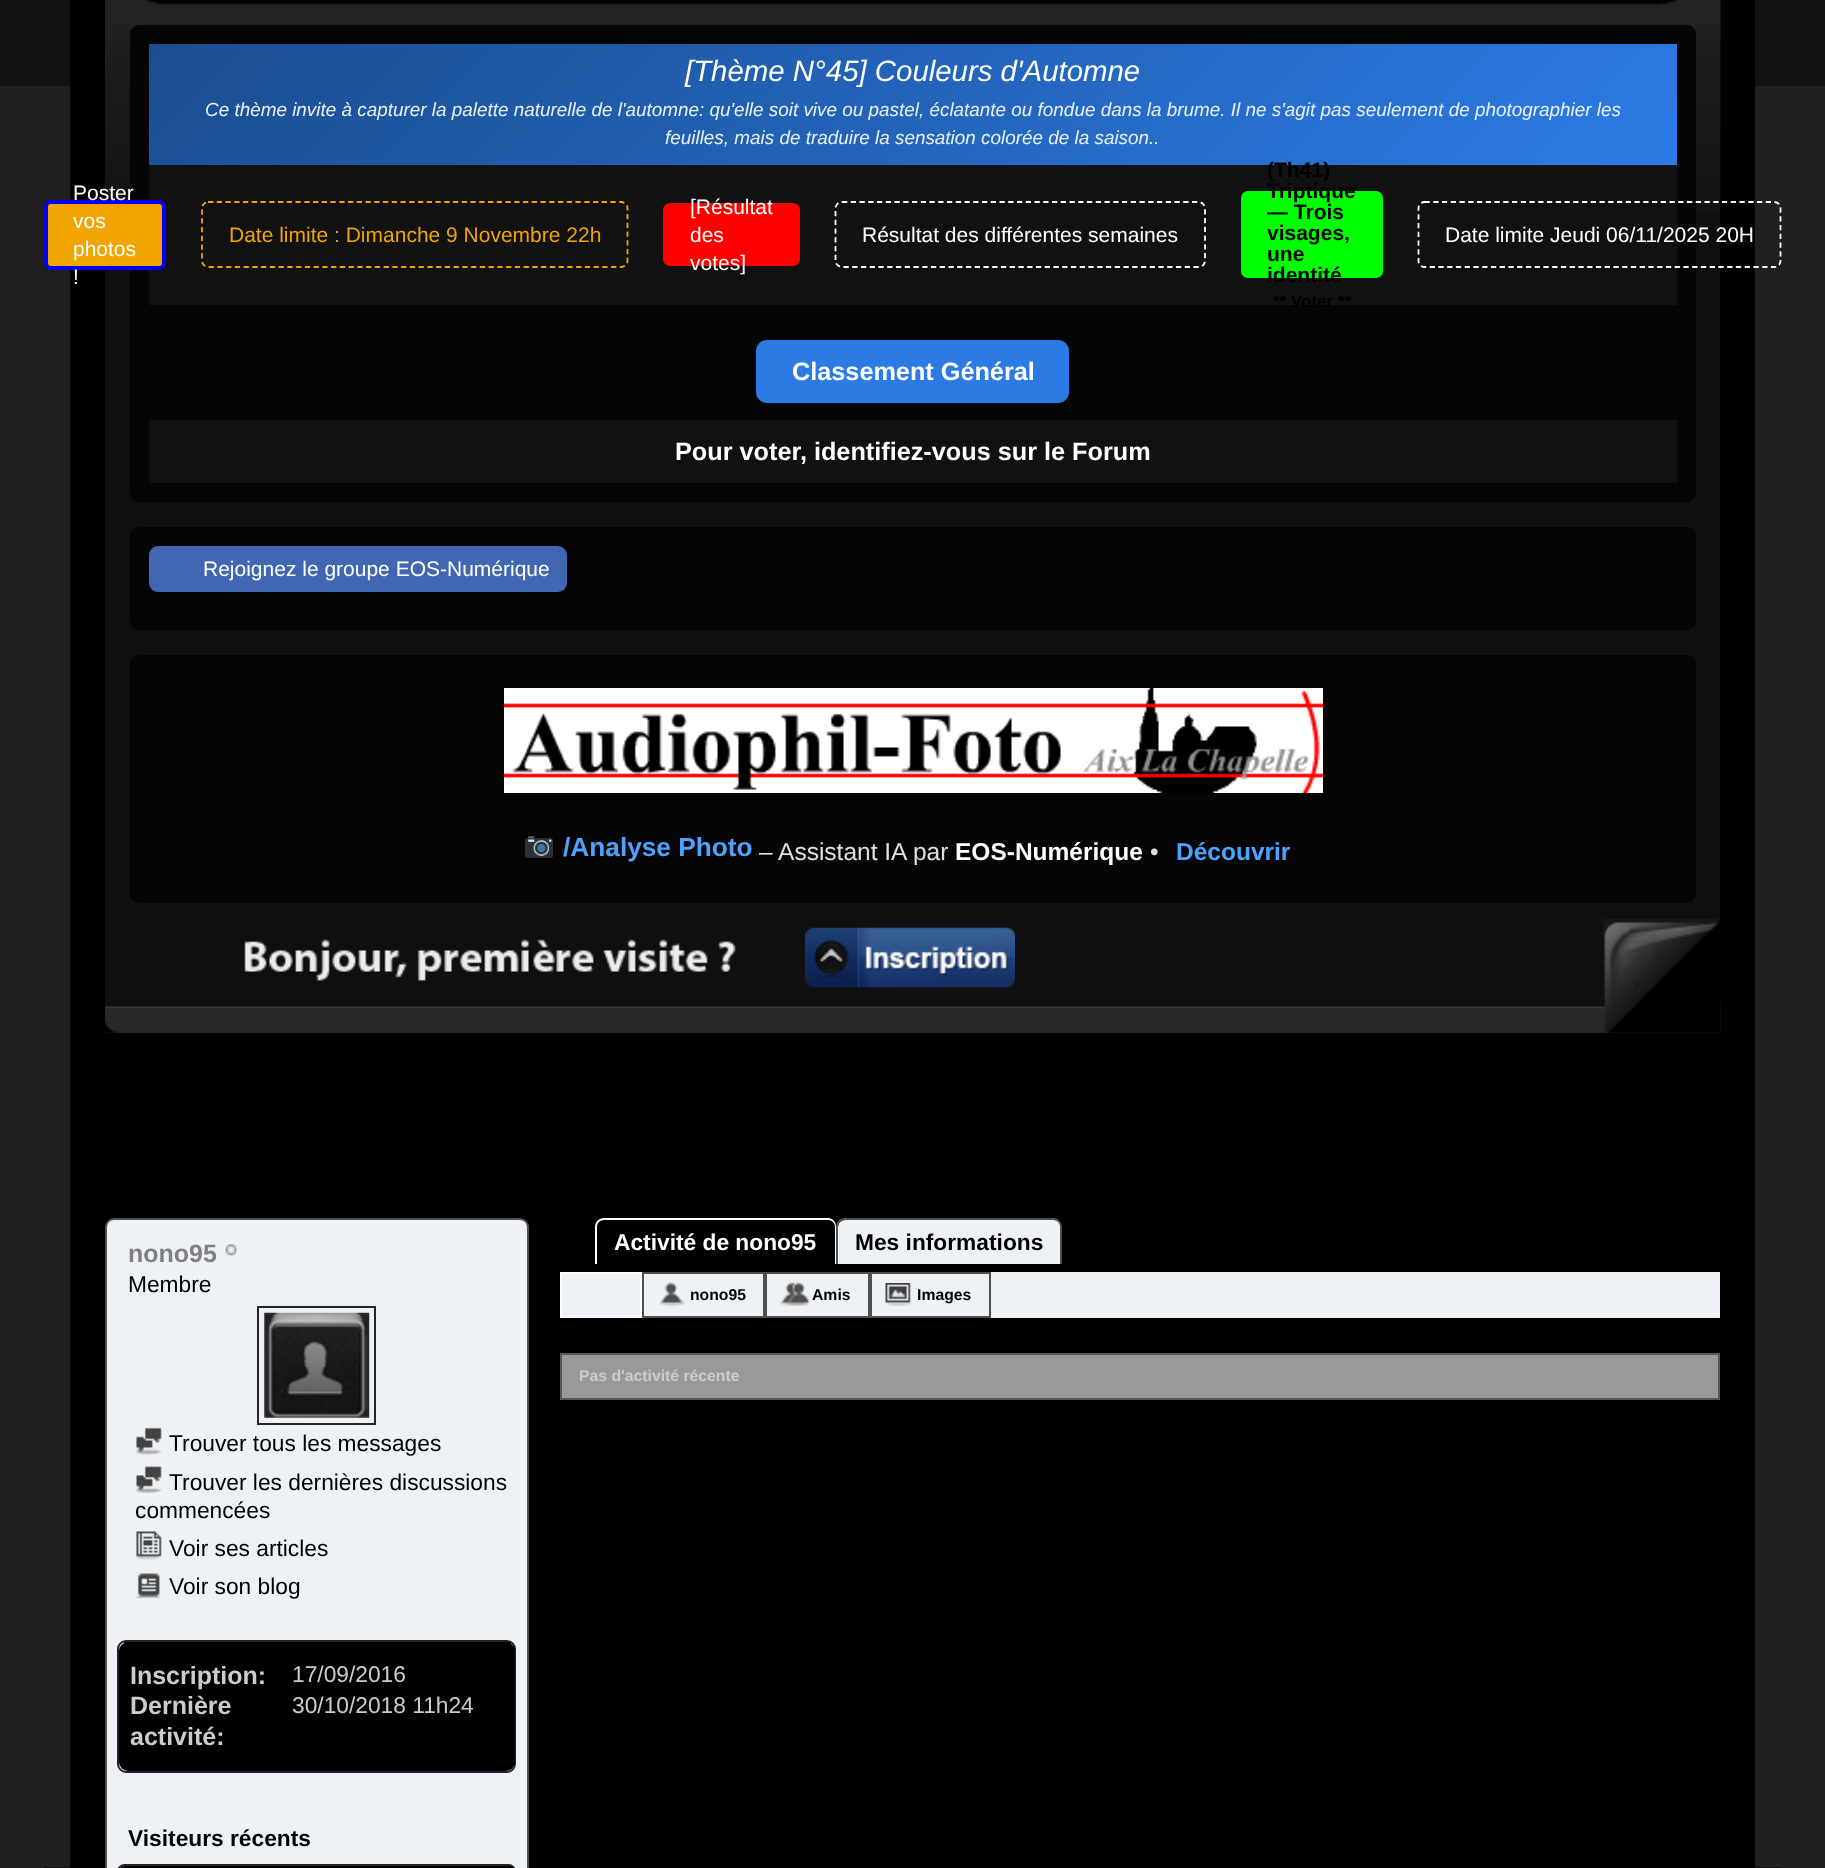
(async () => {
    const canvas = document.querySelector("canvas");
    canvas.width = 1825;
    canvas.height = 1868;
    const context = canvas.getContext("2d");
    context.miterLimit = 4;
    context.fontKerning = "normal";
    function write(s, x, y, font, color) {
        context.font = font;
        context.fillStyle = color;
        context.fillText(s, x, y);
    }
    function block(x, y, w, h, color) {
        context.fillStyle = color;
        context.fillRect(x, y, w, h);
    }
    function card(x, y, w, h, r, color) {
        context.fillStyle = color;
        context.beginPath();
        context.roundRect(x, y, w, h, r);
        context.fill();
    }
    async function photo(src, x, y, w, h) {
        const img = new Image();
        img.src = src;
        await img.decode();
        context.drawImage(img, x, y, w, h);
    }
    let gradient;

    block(0, 0, 1825, 1868, "rgb(32, 32, 32)");
    block(0, 0, 1825, 86, "rgb(17, 17, 17)");
    await photo("media/1.png", 43, 1867, 1739, 1);
    block(70, 0, 1685, 1868, "rgb(0, 0, 0)");
    block(105, 213, 1615, 820, "rgb(15, 15, 15)");
    await photo("media/2.png", 105, 0, 1616, 213);
    await photo("media/3.png", 105, 996, 1616, 37);
    await photo("media/4.png", 1720, 0, 1, 127);
    await photo("media/5.png", 105, 1021, 14, 12);
    await photo("media/6.png", 1603, 919, 117, 114);
    await photo("media/7.png", 145, 0, 16, 5);
    await photo("media/8.png", 1662, 0, 15, 5);
    await photo("media/9.png", 161, 0, 1502, 5);
    context.fillStyle = "rgb(5, 5, 5)";
    context.beginPath();
    context.roundRect(131, 26, 1564, 475, 8);
    context.fill();
    context.strokeStyle = "rgb(5, 5, 5)";
    context.lineWidth = 2;
    context.stroke();
    gradient = context.createLinearGradient(500, -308, 1325, 516);
    gradient.addColorStop(0, "rgb(26, 77, 143)");
    gradient.addColorStop(1, "rgb(44, 123, 229)");
    context.fillStyle = gradient;
    context.fillRect(149, 44, 1528, 121);
    write("[Thème N°45] Couleurs d'Automne", 685, 81, "italic 29.4px Liberation Sans", "rgb(255, 255, 255)");
    write("Ce thème invite à capturer la palette naturelle de l'automne: qu'elle soit vive ou pastel, éclatante ou fondue dans la brume. Il ne s'agit pas seulement de photographier les", 205, 116, "italic 18.9px Liberation Sans", "rgb(233, 240, 248)");
    write("feuilles, mais de traduire la sensation colorée de la saison..", 665, 144, "italic 18.9px Liberation Sans", "rgb(233, 240, 248)");
    block(149, 165, 1528, 140, "rgb(17, 17, 17)");
    context.fillStyle = "rgb(240, 165, 0)";
    context.beginPath();
    context.roundRect(46, 202, 118, 66, 5);
    context.fill();
    context.strokeStyle = "rgb(0, 0, 255)";
    context.lineWidth = 4;
    context.stroke();
    write("Poster", 73, 200, "21px Liberation Sans", "rgb(255, 255, 255)");
    write("vos", 73, 228, "21px Liberation Sans", "rgb(255, 255, 255)");
    write("photos", 73, 256, "21px Liberation Sans", "rgb(255, 255, 255)");
    write("!", 73, 284, "21px Liberation Sans", "rgb(255, 255, 255)");
    context.beginPath();
    context.moveTo(208, 202);
    context.lineTo(621, 202);
    context.bezierCurveTo(624.5, 202, 627.5, 205, 627.5, 208);
    context.lineTo(627.5, 261);
    context.bezierCurveTo(627.5, 264, 624.5, 267, 621, 267);
    context.lineTo(208, 267);
    context.bezierCurveTo(205, 267, 202, 264, 202, 261);
    context.lineTo(202, 208);
    context.bezierCurveTo(202, 205, 205, 202, 208, 202);
    context.closePath();
    context.strokeStyle = "rgb(240, 165, 0)";
    context.lineWidth = 1.8;
    context.setLineDash([5.25, 3.5]);
    context.stroke();
    write("Date limite : Dimanche 9 Novembre 22h", 229, 242, "21px Liberation Sans", "rgb(240, 165, 0)");
    card(663, 203, 137, 63, 7, "rgb(255, 0, 0)");
    write("[Résultat", 690, 214, "21px Liberation Sans", "rgb(255, 255, 255)");
    write("des", 690, 242, "21px Liberation Sans", "rgb(255, 255, 255)");
    write("votes]", 690, 270, "21px Liberation Sans", "rgb(255, 255, 255)");
    context.beginPath();
    context.moveTo(842, 202);
    context.lineTo(1199, 202);
    context.bezierCurveTo(1202, 202, 1205, 205, 1205, 208);
    context.lineTo(1205, 261);
    context.bezierCurveTo(1205, 264, 1202, 267, 1199, 267);
    context.lineTo(842, 267);
    context.bezierCurveTo(838.5, 267, 835.5, 264, 835.5, 261);
    context.lineTo(835.5, 208);
    context.bezierCurveTo(835.5, 205, 838.5, 202, 842, 202);
    context.closePath();
    context.strokeStyle = "rgb(255, 255, 255)";
    context.stroke();
    write("Résultat des différentes semaines", 862, 242, "21px Liberation Sans", "rgb(255, 255, 255)");
    card(1241, 191, 142, 87, 7, "rgb(0, 255, 0)");
    write("(Th41)", 1267, 177, "bold 21px Liberation Sans", "rgb(0, 0, 0)");
    write("Triptique", 1267, 198, "bold 21px Liberation Sans", "rgb(0, 0, 0)");
    write("— Trois", 1267, 219, "bold 21px Liberation Sans", "rgb(0, 0, 0)");
    write("visages,", 1267, 240, "bold 21px Liberation Sans", "rgb(0, 0, 0)");
    write("une", 1267, 261, "bold 21px Liberation Sans", "rgb(0, 0, 0)");
    write("identité", 1267, 282, "bold 21px Liberation Sans", "rgb(0, 0, 0)");
    write("** Voter **", 1273, 307, "bold 17px Liberation Sans", "rgb(0, 0, 0)");
    context.beginPath();
    context.moveTo(1424.5, 202);
    context.lineTo(1774.5, 202);
    context.bezierCurveTo(1778, 202, 1780.5, 205, 1780.5, 208);
    context.lineTo(1780.5, 261);
    context.bezierCurveTo(1780.5, 264, 1778, 267, 1774.5, 267);
    context.lineTo(1424.5, 267);
    context.bezierCurveTo(1421, 267, 1418.5, 264, 1418.5, 261);
    context.lineTo(1418.5, 208);
    context.bezierCurveTo(1418.5, 205, 1421, 202, 1424.5, 202);
    context.closePath();
    context.stroke();
    write("Date limite Jeudi 06/11/2025 20H", 1445, 242, "21px Liberation Sans", "rgb(255, 255, 255)");
    card(756, 340, 313, 63, 11, "rgb(44, 123, 229)");
    write("Classement Général", 792, 380, "bold 25.25px Liberation Sans", "rgb(255, 255, 255)");
    block(149, 420, 1528, 63, "rgb(17, 17, 17)");
    write("Pour voter, identifiez-vous sur le Forum", 675, 460, "bold 25.25px Liberation Sans", "rgb(255, 255, 255)");
    card(130, 527, 1566, 103, 9, "rgb(5, 5, 5)");
    card(149, 546, 418, 46, 9, "rgb(66, 103, 178)");
    write("Rejoignez le groupe EOS-Numérique", 203, 576, "21px Liberation Sans", "rgb(255, 255, 255)");
    card(130, 655, 1566, 248, 9, "rgb(5, 5, 5)");
    await photo("media/10.png", 504, 688, 819, 105);
    await photo("media/11.png", 525, 836, 28, 22);
    write("/Analyse Photo", 563, 856, "bold 26.25px Liberation Sans", "rgb(77, 163, 255)");
    write("– Assistant IA par", 759, 860, "24.5px Liberation Sans", "rgb(224, 224, 224)");
    write("EOS-Numérique", 955, 860, "bold 24.5px Liberation Sans", "rgb(255, 255, 255)");
    write("•", 1150, 860, "24.5px Liberation Sans", "rgb(224, 224, 224)");
    write("Découvrir", 1176, 860, "bold 24.5px Liberation Sans", "rgb(77, 163, 255)");
    await photo("media/12.png", 244, 939, 492, 42);
    await photo("media/13.png", 805, 927, 210, 61);
    context.fillStyle = "rgb(238, 242, 247)";
    context.beginPath();
    context.roundRect(106, 1219, 422, 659, 8);
    context.fill();
    context.strokeStyle = "rgb(79, 80, 81)";
    context.lineWidth = 2;
    context.setLineDash([]);
    context.stroke();
    write("nono95", 128, 1262, "bold 25px Liberation Sans", "rgb(128, 128, 128)");
    await photo("media/14.png", 225, 1244, 12, 12);
    write("Membre", 128, 1292, "22.75px Liberation Sans", "rgb(0, 0, 0)");
    await photo("media/15.png", 264, 1312, 106, 106);
    context.strokeStyle = "rgb(37, 37, 37)";
    context.strokeRect(258, 1307, 117, 117);
    await photo("media/16.png", 136, 1427, 26, 28);
    write("Trouver tous les messages", 169, 1451, "22.75px Liberation Sans", "rgb(0, 0, 0)");
    await photo("media/17.png", 135, 1466, 27, 27);
    write("Trouver les dernières discussions", 169, 1490, "22.75px Liberation Sans", "rgb(0, 0, 0)");
    write("commencées", 135, 1518, "22.75px Liberation Sans", "rgb(0, 0, 0)");
    await photo("media/18.png", 136, 1531, 26, 29);
    write("Voir ses articles", 169, 1556, "22.75px Liberation Sans", "rgb(0, 0, 0)");
    await photo("media/19.png", 135, 1573, 25, 25);
    write("Voir son blog", 169, 1594, "22.75px Liberation Sans", "rgb(0, 0, 0)");
    context.beginPath();
    context.roundRect(118, 1641, 397, 131, 8);
    context.strokeStyle = "rgb(35, 35, 35)";
    context.stroke();
    card(119, 1642, 396, 129, 9, "rgb(0, 0, 0)");
    block(124, 1642, 387, 2, "rgb(0, 0, 0)");
    write("Inscription:", 130, 1684, "bold 25px Liberation Sans", "rgb(204, 204, 204)");
    write("17/09/2016", 292, 1682, "22.75px Liberation Sans", "rgb(204, 204, 204)");
    write("Dernière", 130, 1714, "bold 25px Liberation Sans", "rgb(204, 204, 204)");
    write("activité:", 130, 1745, "bold 25px Liberation Sans", "rgb(204, 204, 204)");
    write("30/10/2018 11h24", 292, 1713, "22.75px Liberation Sans", "rgb(204, 204, 204)");
    write("Visiteurs récents", 128, 1846, "bold 22.75px Liberation Sans", "rgb(0, 0, 0)");
    context.beginPath();
    context.roundRect(118, 1865, 397, 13, 8);
    context.stroke();
    card(119, 1866, 396, 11, 9, "rgb(0, 0, 0)");
    block(124, 1866, 387, 2, "rgb(0, 0, 0)");
    context.fillStyle = "rgb(255, 255, 255)";
    context.beginPath();
    context.moveTo(604, 1218);
    context.lineTo(828, 1218);
    context.bezierCurveTo(833, 1218, 836, 1222, 836, 1227);
    context.lineTo(836, 1264);
    context.lineTo(595, 1264);
    context.lineTo(595, 1227);
    context.bezierCurveTo(595, 1222, 599, 1218, 604, 1218);
    context.closePath();
    context.moveTo(604, 1220);
    context.lineTo(828, 1220);
    context.bezierCurveTo(832, 1220, 835, 1223, 835, 1227);
    context.lineTo(835, 1264);
    context.lineTo(597, 1264);
    context.lineTo(597, 1227);
    context.bezierCurveTo(597, 1223, 600, 1220, 604, 1220);
    context.closePath();
    context.fill("evenodd");
    write("Activité de nono95", 614, 1250, "bold 22.75px Liberation Sans", "rgb(255, 255, 255)");
    context.fillStyle = "rgb(238, 242, 247)";
    context.beginPath();
    context.roundRect(838, 1220, 223, 44, [7, 7, 0, 0]);
    context.fill();
    context.fillStyle = "rgb(79, 80, 81)";
    context.beginPath();
    context.moveTo(845, 1218);
    context.lineTo(1054, 1218);
    context.bezierCurveTo(1058, 1218, 1062, 1222, 1062, 1227);
    context.lineTo(1062, 1264);
    context.lineTo(836, 1264);
    context.lineTo(836, 1227);
    context.bezierCurveTo(836, 1222, 840, 1218, 845, 1218);
    context.closePath();
    context.moveTo(845, 1220);
    context.lineTo(1054, 1220);
    context.bezierCurveTo(1057, 1220, 1060, 1223, 1060, 1227);
    context.lineTo(1060, 1264);
    context.lineTo(838, 1264);
    context.lineTo(838, 1227);
    context.bezierCurveTo(838, 1223, 841, 1220, 845, 1220);
    context.closePath();
    context.fill("evenodd");
    write("Mes informations", 855, 1250, "bold 22.75px Liberation Sans", "rgb(0, 0, 0)");
    block(562, 1272, 1158, 46, "rgb(238, 242, 247)");
    context.strokeStyle = "rgb(255, 255, 255)";
    context.strokeRect(561, 1273, 80, 44);
    context.strokeStyle = "rgb(79, 80, 81)";
    context.strokeRect(643, 1273, 121, 44);
    await photo("media/20.png", 659, 1282, 26, 24);
    write("nono95", 690, 1300, "bold 15.75px Liberation Sans", "rgb(0, 0, 0)");
    context.strokeRect(766, 1273, 103, 44);
    await photo("media/21.png", 780, 1282, 29, 24);
    write("Amis", 812, 1300, "bold 15.75px Liberation Sans", "rgb(0, 0, 0)");
    context.strokeRect(871, 1273, 119, 44);
    await photo("media/22.png", 885, 1283, 27, 23);
    write("Images", 917, 1300, "bold 15.75px Liberation Sans", "rgb(0, 0, 0)");
    context.fillStyle = "rgb(153, 153, 153)";
    context.beginPath();
    context.rect(561, 1354, 1158, 45);
    context.fill();
    context.strokeStyle = "rgb(88, 88, 88)";
    context.stroke();
    write("Pas d'activité récente", 579, 1381, "bold 15.75px Liberation Sans", "rgb(204, 204, 204)");
})();
